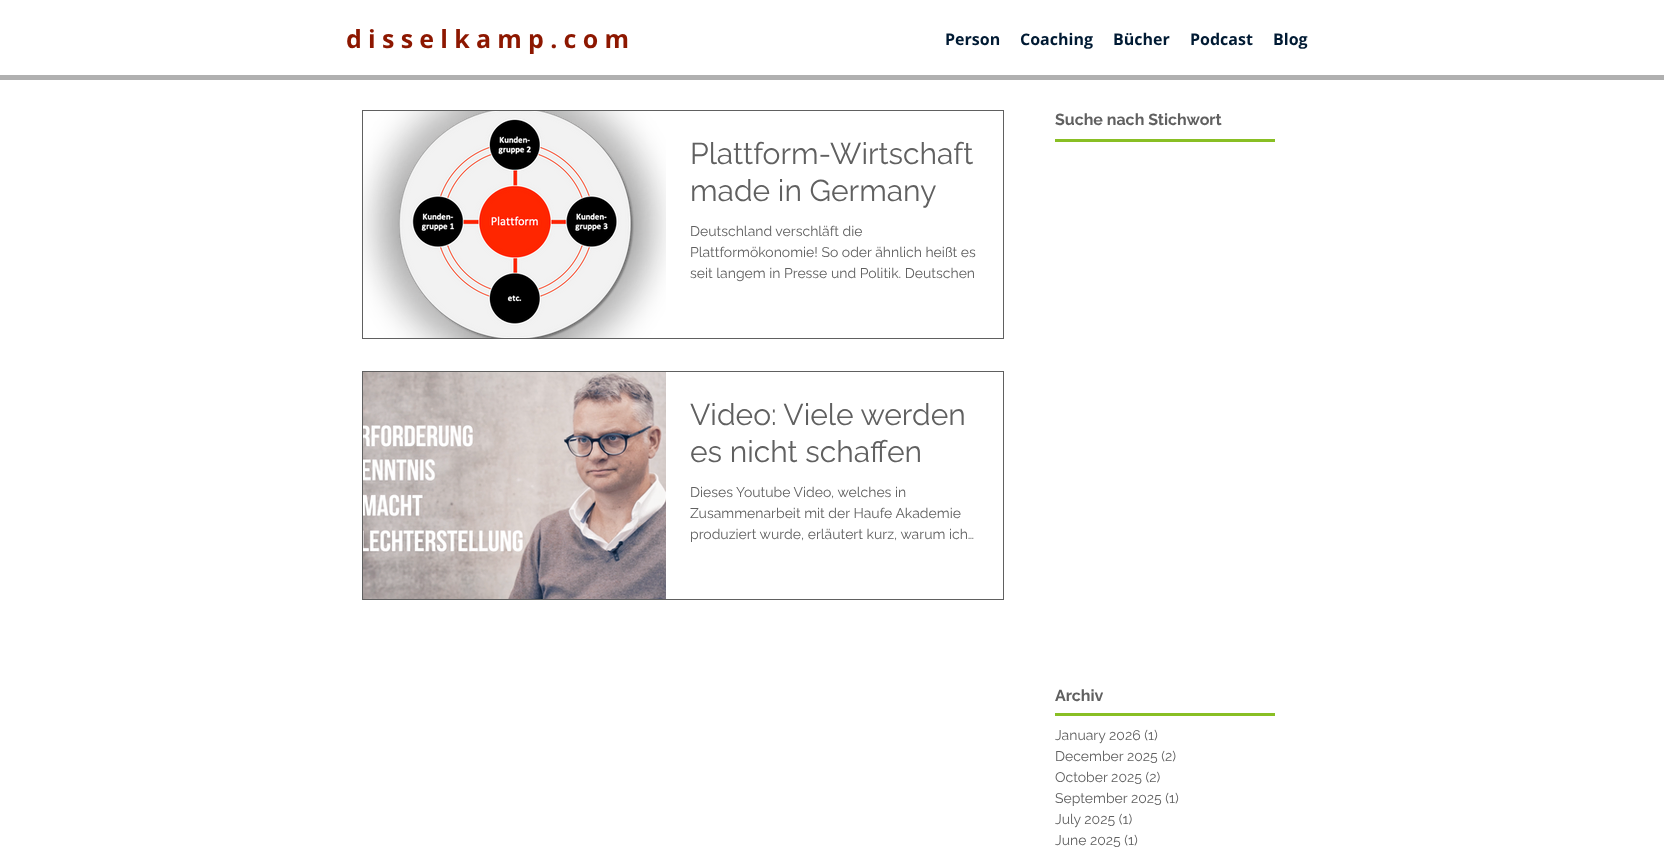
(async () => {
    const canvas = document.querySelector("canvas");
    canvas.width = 1664;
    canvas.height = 850;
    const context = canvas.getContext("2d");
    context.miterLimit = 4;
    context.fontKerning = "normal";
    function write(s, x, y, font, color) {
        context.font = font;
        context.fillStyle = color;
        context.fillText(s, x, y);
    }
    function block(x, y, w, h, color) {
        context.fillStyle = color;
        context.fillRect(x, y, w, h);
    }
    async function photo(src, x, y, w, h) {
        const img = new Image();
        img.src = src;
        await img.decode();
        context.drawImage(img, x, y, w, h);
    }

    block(0, 0, 1664, 850, "rgb(255, 255, 255)");
    context.letterSpacing = "6.25px";
    write("disselkamp.com", 346, 48, "bold 25px Open Sans", "rgb(141, 23, 0)");
    context.letterSpacing = "0px";
    write("Person", 945, 45, "bold 16px Open Sans", "rgb(0, 26, 51)");
    write("Coaching", 1020, 45, "bold 16px Open Sans", "rgb(0, 26, 51)");
    write("Bücher", 1113, 45, "bold 16px Open Sans", "rgb(0, 26, 51)");
    write("Podcast", 1190, 45, "bold 16px Open Sans", "rgb(0, 26, 51)");
    write("Blog", 1273, 45, "bold 16px Open Sans", "rgb(0, 26, 51)");
    block(0, 75, 1664, 5, "rgb(176, 176, 176)");
    write("Suche nach Stichwort", 1055, 125, "bold 16px Raleway", "rgb(96, 96, 96)");
    block(1055, 139, 220, 3, "rgb(137, 191, 36)");
    context.strokeStyle = "rgb(96, 96, 96)";
    context.strokeRect(362.5, 110.5, 641, 228);
    await photo("media/1.png", 363, 111, 303, 227);
    await photo("media/2.png", 398, 111, 236, 227);
    write("Plattform-Wirtschaft", 690, 164, "30px Raleway", "rgb(96, 96, 96)");
    write("made in Germany", 690, 201, "30px Raleway", "rgb(96, 96, 96)");
    write("Deutschland verschläft die", 690, 236, "14px Raleway", "rgb(96, 96, 96)");
    write("Plattformökonomie! So oder ähnlich heißt es", 690, 257, "14px Raleway", "rgb(96, 96, 96)");
    write("seit langem in Presse und Politik. Deutschen", 690, 278, "14px Raleway", "rgb(96, 96, 96)");
    context.strokeRect(362.5, 371.5, 641, 228);
    await photo("media/3.png", 363, 372, 303, 227);
    write("Video: Viele werden", 690, 425, "30px Raleway", "rgb(96, 96, 96)");
    write("es nicht schaffen", 690, 462, "30px Raleway", "rgb(96, 96, 96)");
    write("Dieses Youtube Video, welches in", 690, 497, "14px Raleway", "rgb(96, 96, 96)");
    write("Zusammenarbeit mit der Haufe Akademie", 690, 518, "14px Raleway", "rgb(96, 96, 96)");
    write("produziert wurde, erläutert kurz, warum ich…", 690, 539, "14px Raleway", "rgb(96, 96, 96)");
    write("Archiv", 1055, 701, "bold 16px Raleway", "rgb(96, 96, 96)");
    block(1055, 713, 220, 3, "rgb(137, 191, 36)");
    write("January 2026 (1)", 1055, 740, "14px Raleway", "rgb(96, 96, 96)");
    write("December 2025 (2)", 1055, 761, "14px Raleway", "rgb(96, 96, 96)");
    write("October 2025 (2)", 1055, 782, "14px Raleway", "rgb(96, 96, 96)");
    write("September 2025 (1)", 1055, 803, "14px Raleway", "rgb(96, 96, 96)");
    write("July 2025 (1)", 1055, 824, "14px Raleway", "rgb(96, 96, 96)");
    write("June 2025 (1)", 1055, 845, "14px Raleway", "rgb(96, 96, 96)");
})();
